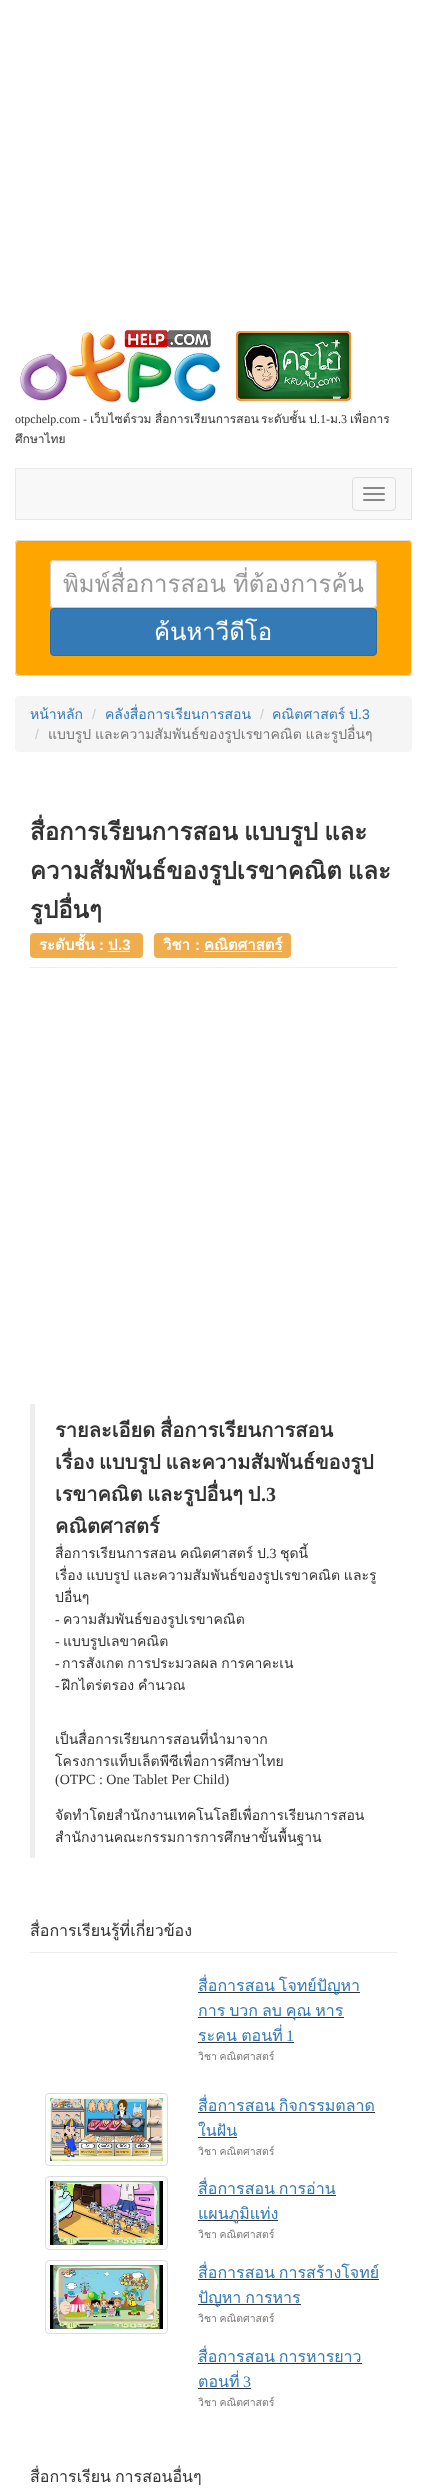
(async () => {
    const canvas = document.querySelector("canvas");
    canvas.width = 427;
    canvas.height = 2488;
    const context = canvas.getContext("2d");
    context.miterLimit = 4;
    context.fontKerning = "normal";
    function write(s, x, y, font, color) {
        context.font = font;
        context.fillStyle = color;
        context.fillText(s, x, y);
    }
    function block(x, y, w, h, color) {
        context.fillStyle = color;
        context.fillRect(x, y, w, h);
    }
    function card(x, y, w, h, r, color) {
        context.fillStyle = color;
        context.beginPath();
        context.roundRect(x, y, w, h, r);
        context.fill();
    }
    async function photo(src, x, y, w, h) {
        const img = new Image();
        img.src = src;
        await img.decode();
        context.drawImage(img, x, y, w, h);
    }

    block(0, 0, 427, 2488, "rgb(255, 255, 255)");
    await photo("media/1.png", 20, 330, 201, 74);
    await photo("media/2.png", 236, 331, 115, 70);
    write("otpchelp.com -", 15, 423, "12px Liberation Serif", "rgb(51, 51, 51)");
    write("เว็บไซต์รวม", 90, 423, "12px Loma", "rgb(51, 51, 51)");
    write("สื่อการเรียนการสอน", 155, 423, "12px Loma", "rgb(51, 51, 51)");
    write("ระดับชั้น", 261, 423, "12px Loma", "rgb(51, 51, 51)");
    write("ป", 309, 423, "12px Loma", "rgb(51, 51, 51)");
    write(".1-", 317, 423, "12px Liberation Serif", "rgb(51, 51, 51)");
    write("ม", 330, 423, "12px Loma", "rgb(51, 51, 51)");
    write(".3", 338, 423, "12px Liberation Serif", "rgb(51, 51, 51)");
    write("เพื่อการ", 350, 423, "12px Loma", "rgb(51, 51, 51)");
    write("ศึกษาไทย", 15, 443, "12px Loma", "rgb(51, 51, 51)");
    context.fillStyle = "rgb(248, 248, 248)";
    context.beginPath();
    context.rect(15.5, 468.5, 396, 51);
    context.fill();
    context.strokeStyle = "rgb(231, 231, 231)";
    context.stroke();
    context.beginPath();
    context.roundRect(352.5, 477.5, 43, 33, 3.5);
    context.strokeStyle = "rgb(221, 221, 221)";
    context.stroke();
    card(363, 487, 22, 2, 1, "rgb(136, 136, 136)");
    card(363, 493, 22, 2, 1, "rgb(136, 136, 136)");
    card(363, 499, 22, 2, 1, "rgb(136, 136, 136)");
    card(15, 540, 397, 136, 4, "rgb(255, 165, 0)");
    context.fillStyle = "rgb(242, 157, 0)";
    context.beginPath();
    context.moveTo(19, 542);
    context.lineTo(408, 542);
    context.bezierCurveTo(410, 542, 411, 543, 411, 545);
    context.bezierCurveTo(411, 543, 410, 541, 408, 541);
    context.lineTo(19, 541);
    context.lineTo(17, 542);
    context.lineTo(16, 545);
    context.bezierCurveTo(16, 543, 17, 542, 19, 542);
    context.closePath();
    context.fill();
    context.beginPath();
    context.roundRect(15.5, 540.5, 396, 135, 3.5);
    context.strokeStyle = "rgb(227, 227, 227)";
    context.stroke();
    card(50, 560, 327, 48, 4, "rgb(255, 255, 255)");
    context.fillStyle = "rgb(236, 236, 236)";
    context.beginPath();
    context.moveTo(54, 562);
    context.lineTo(373, 562);
    context.bezierCurveTo(375, 562, 376, 563, 376, 565);
    context.bezierCurveTo(376, 563, 375, 561, 373, 561);
    context.lineTo(54, 561);
    context.bezierCurveTo(52, 561, 51, 563, 51, 565);
    context.bezierCurveTo(51, 563, 52, 562, 54, 562);
    context.closePath();
    context.fill();
    context.beginPath();
    context.roundRect(50.5, 560.5, 326, 47, 3.5);
    context.strokeStyle = "rgb(204, 204, 204)";
    context.stroke();
    context.save();
    context.beginPath();
    context.rect(63, 564, 301, 39);
    context.clip();
    context.wordSpacing = "-1px";
    write("พิมพ์สื่อการสอน ที่ต้องการค้น", 63, 592, "24px Loma", "rgb(153, 153, 153)");
    context.restore();
    context.fillStyle = "rgb(51, 122, 183)";
    context.beginPath();
    context.roundRect(50.5, 608.5, 326, 47, 3.5);
    context.fill();
    context.strokeStyle = "rgb(46, 109, 164)";
    context.stroke();
    write("ค้นหาวีดีโอ", 154, 640, "24px Loma", "rgb(255, 255, 255)");
    card(15, 696, 397, 56, 4, "rgb(245, 245, 245)");
    write("หน้าหลัก", 30, 719, "14px Loma", "rgb(51, 122, 183)");
    write("/", 92, 719, "14px Liberation Sans", "rgb(204, 204, 204)");
    write("คลังสื่อการเรียนการสอน", 105, 719, "14px Loma", "rgb(51, 122, 183)");
    write("/", 260, 719, "14px Liberation Sans", "rgb(204, 204, 204)");
    context.wordSpacing = "-1px";
    write("คณิตศาสตร์ ป", 272, 719, "14px Loma", "rgb(51, 122, 183)");
    context.wordSpacing = "0px";
    write(".3", 358, 719, "14px Liberation Sans", "rgb(51, 122, 183)");
    write("/", 35, 739, "14px Liberation Sans", "rgb(204, 204, 204)");
    context.wordSpacing = "-1px";
    write("แบบรูป และความสัมพันธ์ของรูปเรขาคณิต และรูปอื่นๆ", 48, 739, "14px Loma", "rgb(119, 119, 119)");
    block(30, 967, 367, 1, "rgb(238, 238, 238)");
    context.wordSpacing = "-2px";
    write("สื่อการเรียนการสอน แบบรูป และ", 30, 840, "bold 24px Loma", "rgb(51, 51, 51)");
    write("ความสัมพันธ์ของรูปเรขาคณิต และ", 30, 879, "bold 24px Loma", "rgb(51, 51, 51)");
    context.wordSpacing = "0px";
    write("รูปอื่นๆ", 30, 918, "bold 24px Loma", "rgb(51, 51, 51)");
    context.fillStyle = "rgb(240, 173, 78)";
    context.beginPath();
    context.roundRect(30, 933, 78, 25, [4, 0, 0, 4]);
    context.fill();
    write("ระดับชั้น", 39, 950, "bold 15px Loma", "rgb(255, 255, 255)");
    write(":", 99, 950, "bold 15px Liberation Sans", "rgb(255, 255, 255)");
    block(108, 933, 22, 25, "rgb(240, 173, 78)");
    write("ป", 108, 950, "bold 15px Loma", "rgb(255, 255, 255)");
    write(".3", 118, 950, "bold 15px Liberation Sans", "rgb(255, 255, 255)");
    context.fillStyle = "rgb(240, 173, 78)";
    context.beginPath();
    context.roundRect(130, 933, 13, 25, [0, 4, 4, 0]);
    context.fill();
    block(108, 951, 22, 1, "rgb(255, 255, 255)");
    context.fillStyle = "rgb(240, 173, 78)";
    context.beginPath();
    context.roundRect(154, 933, 50, 25, [4, 0, 0, 4]);
    context.fill();
    write("วิชา", 163, 950, "bold 15px Loma", "rgb(255, 255, 255)");
    write(":", 195, 950, "bold 15px Liberation Sans", "rgb(255, 255, 255)");
    context.fillStyle = "rgb(240, 173, 78)";
    context.beginPath();
    context.roundRect(204, 933, 87, 25, [0, 4, 4, 0]);
    context.fill();
    block(204, 951, 78, 1, "rgb(255, 255, 255)");
    write("คณิตศาสตร์", 204, 950, "bold 15px Loma", "rgb(255, 255, 255)");
    block(30, 1404, 5, 454, "rgb(238, 238, 238)");
    context.wordSpacing = "-2px";
    write("รายละเอียด สื่อการเรียนการสอน", 55, 1437, "bold 20px Loma", "rgb(51, 51, 51)");
    write("เรื่อง แบบรูป และความสัมพันธ์ของรูป", 55, 1469, "bold 20px Loma", "rgb(51, 51, 51)");
    write("เรขาคณิต และรูปอื่นๆ ป", 55, 1501, "bold 20px Loma", "rgb(51, 51, 51)");
    context.wordSpacing = "0px";
    write(".3", 261, 1501, "bold 20px Liberation Serif", "rgb(51, 51, 51)");
    write("คณิตศาสตร์", 55, 1533, "bold 20px Loma", "rgb(51, 51, 51)");
    context.wordSpacing = "-1px";
    write("สื่อการเรียนการสอน คณิตศาสตร์ ป", 55, 1558, "14px Loma", "rgb(51, 51, 51)");
    context.wordSpacing = "0px";
    write(".3", 266, 1558, "14px Liberation Serif", "rgb(51, 51, 51)");
    write("ชุดนี้", 280, 1558, "14px Loma", "rgb(51, 51, 51)");
    context.wordSpacing = "-1px";
    write("เรื่อง แบบรูป และความสัมพันธ์ของรูปเรขาคณิต และรู", 55, 1580, "14px Loma", "rgb(51, 51, 51)");
    context.wordSpacing = "0px";
    write("ปอื่นๆ", 55, 1602, "14px Loma", "rgb(51, 51, 51)");
    write("-", 55, 1624, "14px Liberation Serif", "rgb(51, 51, 51)");
    write("ความสัมพันธ์ของรูปเรขาคณิต", 63, 1624, "14px Loma", "rgb(51, 51, 51)");
    write("-", 55, 1646, "14px Liberation Serif", "rgb(51, 51, 51)");
    write("แบบรูปเลขาคณิต", 63, 1646, "14px Loma", "rgb(51, 51, 51)");
    write("-", 55, 1668, "14px Liberation Serif", "rgb(51, 51, 51)");
    context.wordSpacing = "-1px";
    write("การสังเกต การประมวลผล การคาคะเน", 62, 1668, "14px Loma", "rgb(51, 51, 51)");
    context.wordSpacing = "0px";
    write("-", 55, 1690, "14px Liberation Serif", "rgb(51, 51, 51)");
    context.wordSpacing = "-1px";
    write("ฝึกไตร่ตรอง คำนวณ", 62, 1690, "14px Loma", "rgb(51, 51, 51)");
    context.wordSpacing = "0px";
    write("เป็นสื่อการเรียนการสอนที่นำมาจาก", 55, 1744, "14px Loma", "rgb(51, 51, 51)");
    write("โครงการแท็บเล็ตพีซีเพื่อการศึกษาไทย", 55, 1766, "14px Loma", "rgb(51, 51, 51)");
    write("(OTPC : One Tablet Per Child)", 55, 1784, "14px Liberation Serif", "rgb(51, 51, 51)");
    write("จัดทำโดยสำนักงานเทคโนโลยีเพื่อการเรียนการสอน", 55, 1820, "14px Loma", "rgb(51, 51, 51)");
    write("สำนักงานคณะกรรมการการศึกษาขั้นพื้นฐาน", 55, 1842, "14px Loma", "rgb(51, 51, 51)");
    block(30, 1952, 367, 1, "rgb(238, 238, 238)");
    write("สื่อการเรียนรู้ที่เกี่ยวข้อง", 30, 1936, "16px Loma", "rgb(51, 51, 51)");
    block(198, 1992, 162, 1, "rgb(51, 51, 51)");
    context.wordSpacing = "-1.5px";
    write("สื่อการสอน โจทย์ปัญหา", 198, 1991, "16px Loma", "rgb(51, 122, 183)");
    block(198, 2017, 146, 1, "rgb(51, 51, 51)");
    write("การ บวก ลบ คุณ หาร", 198, 2016, "16px Loma", "rgb(51, 122, 183)");
    context.wordSpacing = "-1px";
    write("ระคน ตอนที่", 198, 2041, "16px Loma", "rgb(51, 122, 183)");
    context.wordSpacing = "0px";
    write("1", 286, 2041, "16px Liberation Serif", "rgb(51, 122, 183)");
    block(198, 2042, 96, 1, "rgb(51, 51, 51)");
    context.wordSpacing = "-1px";
    write("วิชา คณิตศาสตร์", 198, 2060, "10.5px Loma", "rgb(119, 119, 119)");
    context.beginPath();
    context.roundRect(45.5, 2093.5, 122, 72, 3.5);
    context.strokeStyle = "rgb(221, 221, 221)";
    context.stroke();
    await photo("media/3.png", 50, 2098, 113, 63);
    context.wordSpacing = "-1.5px";
    write("สื่อการสอน กิจกรรมตลาด", 198, 2111, "16px Loma", "rgb(51, 122, 183)");
    block(198, 2112, 177, 1, "rgb(51, 51, 51)");
    context.wordSpacing = "0px";
    write("ในฝัน", 198, 2136, "16px Loma", "rgb(51, 122, 183)");
    block(198, 2137, 39, 1, "rgb(51, 51, 51)");
    context.wordSpacing = "-1px";
    write("วิชา คณิตศาสตร์", 198, 2155, "10.5px Loma", "rgb(119, 119, 119)");
    context.beginPath();
    context.roundRect(45.5, 2176.5, 122, 73, 3.5);
    context.stroke();
    await photo("media/4.png", 50, 2181, 113, 64);
    context.wordSpacing = "-1.5px";
    write("สื่อการสอน การอ่าน", 198, 2194, "16px Loma", "rgb(51, 122, 183)");
    block(198, 2195, 138, 1, "rgb(51, 51, 51)");
    block(198, 2220, 80, 1, "rgb(51, 51, 51)");
    context.wordSpacing = "0px";
    write("แผนภูมิแท่ง", 198, 2219, "16px Loma", "rgb(51, 122, 183)");
    context.wordSpacing = "-1px";
    write("วิชา คณิตศาสตร์", 198, 2238, "10.5px Loma", "rgb(119, 119, 119)");
    context.beginPath();
    context.roundRect(45.5, 2260.5, 122, 73, 3.5);
    context.stroke();
    await photo("media/5.png", 50, 2265, 113, 64);
    context.wordSpacing = "-1.5px";
    write("สื่อการสอน การสร้างโจทย์", 198, 2278, "16px Loma", "rgb(51, 122, 183)");
    block(198, 2279, 181, 1, "rgb(51, 51, 51)");
    block(198, 2304, 103, 1, "rgb(51, 51, 51)");
    write("ปัญหา การหาร", 198, 2303, "16px Loma", "rgb(51, 122, 183)");
    context.wordSpacing = "-1px";
    write("วิชา คณิตศาสตร์", 198, 2322, "10.5px Loma", "rgb(119, 119, 119)");
    context.wordSpacing = "-1.5px";
    write("สื่อการสอน การหารยาว", 198, 2362, "16px Loma", "rgb(51, 122, 183)");
    block(198, 2363, 164, 1, "rgb(51, 51, 51)");
    context.wordSpacing = "0px";
    write("ตอนที่", 198, 2387, "16px Loma", "rgb(51, 122, 183)");
    write("3", 243, 2387, "16px Liberation Serif", "rgb(51, 122, 183)");
    block(198, 2388, 53, 1, "rgb(51, 51, 51)");
    context.wordSpacing = "-1px";
    write("วิชา คณิตศาสตร์", 198, 2406, "10.5px Loma", "rgb(119, 119, 119)");
    context.wordSpacing = "-1.5px";
    write("สื่อการเรียน การสอนอื่นๆ", 30, 2482, "16px Loma", "rgb(51, 51, 51)");
})();
